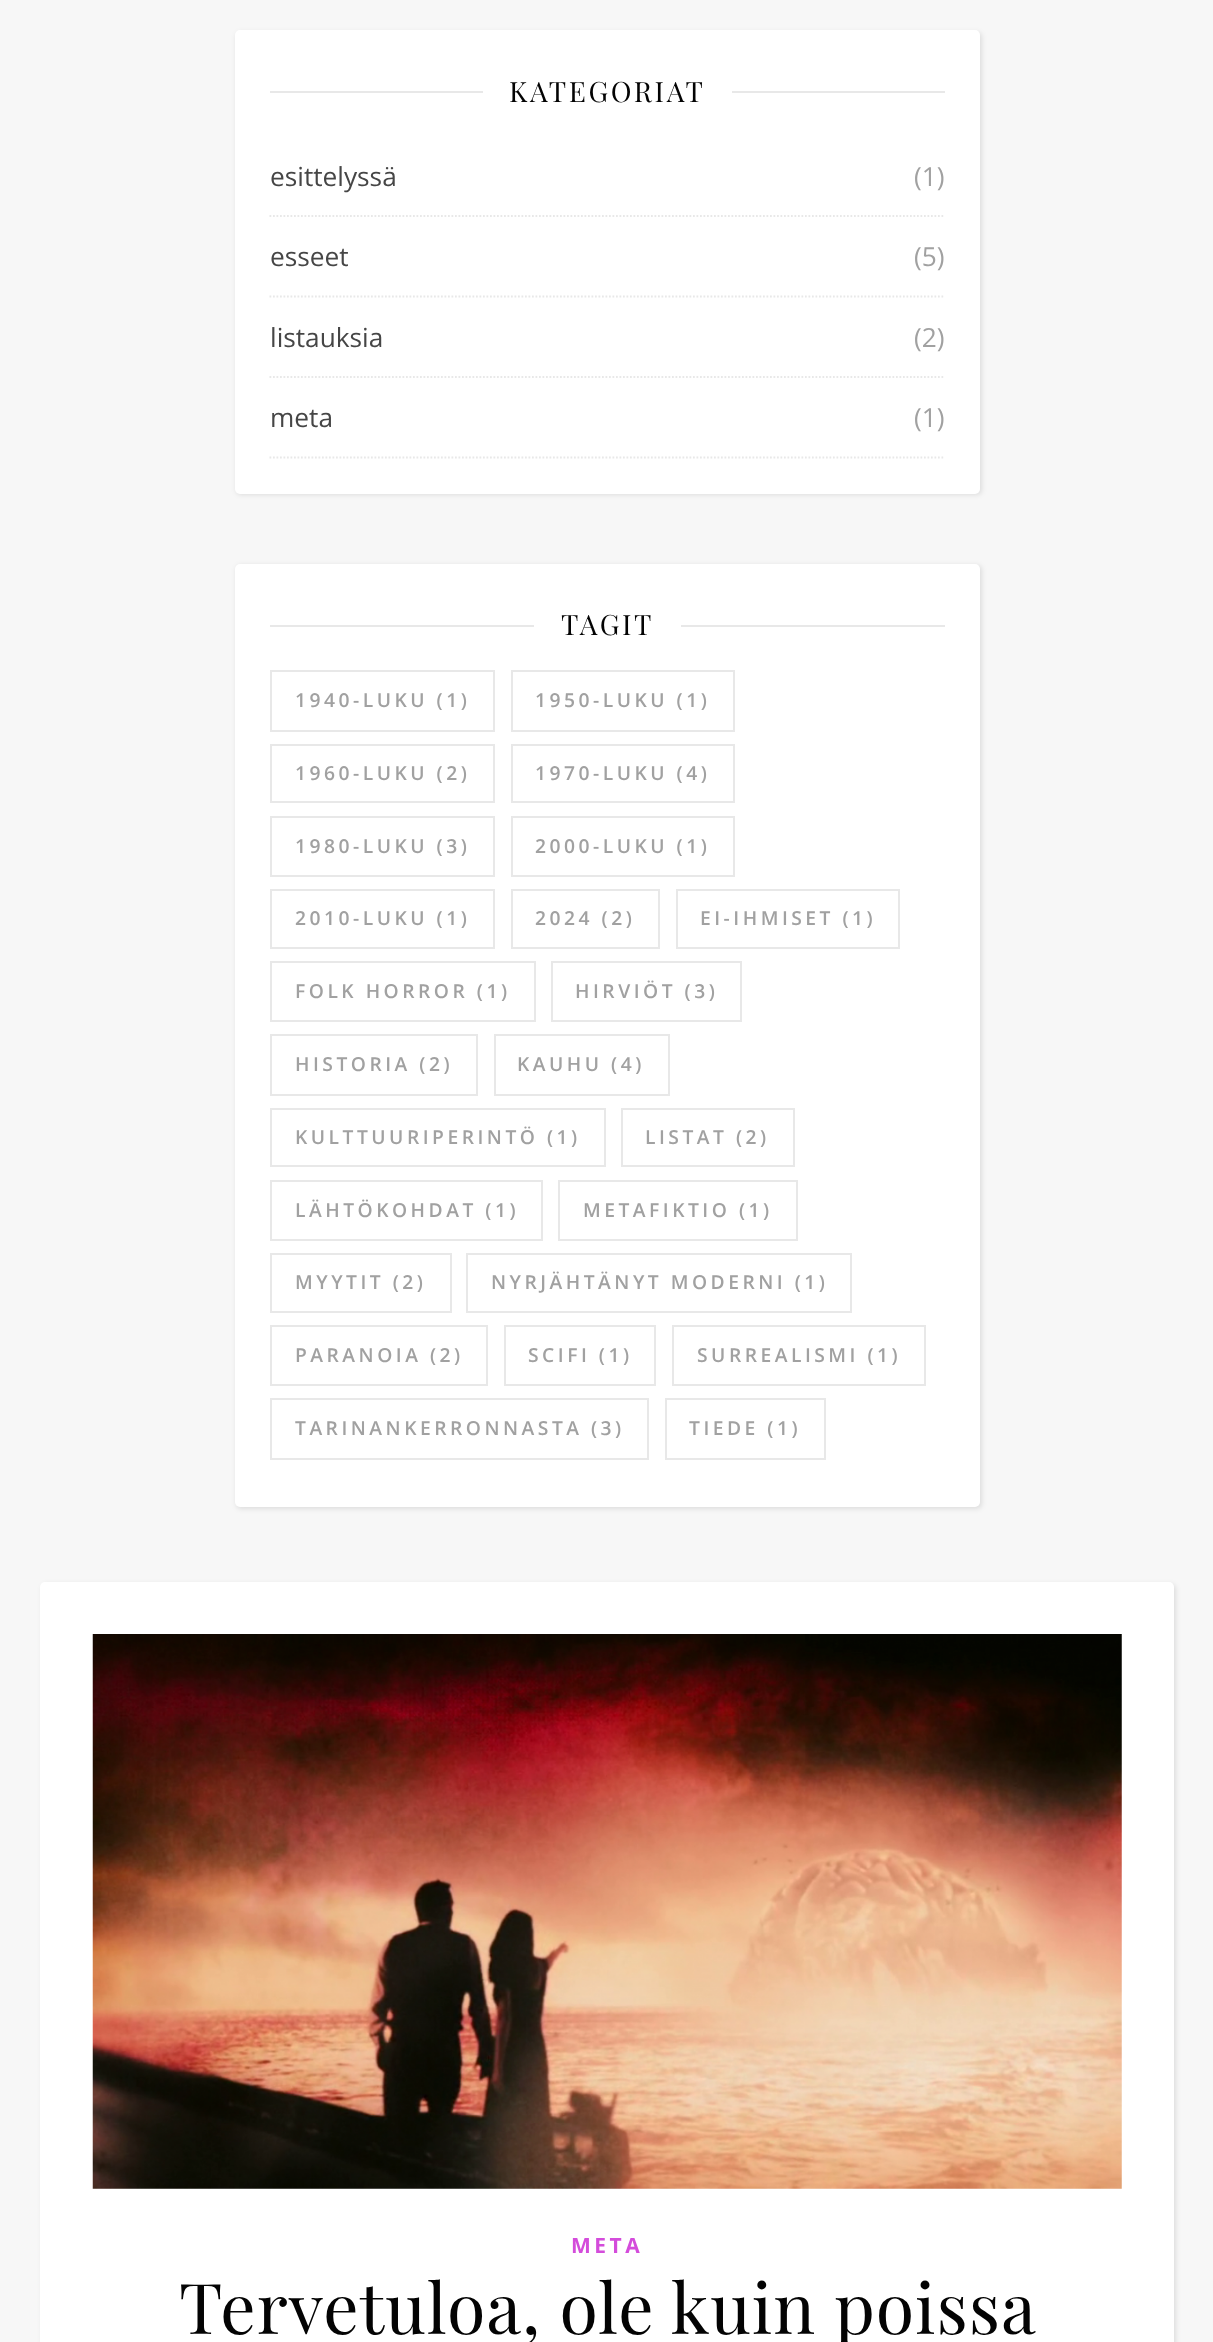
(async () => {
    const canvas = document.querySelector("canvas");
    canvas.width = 1213;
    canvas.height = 2342;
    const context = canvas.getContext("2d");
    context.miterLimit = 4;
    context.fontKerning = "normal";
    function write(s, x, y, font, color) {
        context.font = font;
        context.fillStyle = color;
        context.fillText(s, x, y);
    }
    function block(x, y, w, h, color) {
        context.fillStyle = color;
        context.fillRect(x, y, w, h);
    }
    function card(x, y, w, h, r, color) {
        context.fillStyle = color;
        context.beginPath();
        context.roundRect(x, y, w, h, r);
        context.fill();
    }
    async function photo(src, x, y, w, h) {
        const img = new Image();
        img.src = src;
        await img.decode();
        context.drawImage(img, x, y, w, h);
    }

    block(0, 0, 1213, 2342, "rgb(247, 247, 247)");
    context.fillStyle = "rgba(0, 0, 0, 0.1)";
    context.filter = "blur(2.5px)";
    context.beginPath();
    context.roundRect(236, 32, 746, 463, 5);
    context.fill();
    context.filter = "none";
    card(235, 30, 745, 464, 5, "rgb(255, 255, 255)");
    block(270, 91, 213, 2, "rgb(232, 232, 232)");
    context.letterSpacing = "2.6px";
    write("KATEGORIAT", 509, 102, "28px Playfair Display", "rgb(3, 3, 3)");
    block(732, 91, 213, 2, "rgb(232, 232, 232)");
    context.beginPath();
    context.moveTo(269.5, 216);
    context.lineTo(945, 216);
    context.strokeStyle = "rgb(232, 232, 232)";
    context.lineWidth = 1.8;
    context.setLineDash([1.75, 1.75]);
    context.stroke();
    context.letterSpacing = "0px";
    write("esittelyssä", 270, 186, "26.25px Open Sans", "rgb(70, 70, 70)");
    write("(1)", 914, 186, "26.25px Open Sans", "rgb(161, 161, 161)");
    context.beginPath();
    context.moveTo(269.5, 296.5);
    context.lineTo(945, 296.5);
    context.stroke();
    context.save();
    context.beginPath();
    context.rect(270, 217, 78, 79);
    context.clip();
    write("esseet", 270, 266, "26.25px Open Sans", "rgb(70, 70, 70)");
    context.restore();
    write("(5)", 914, 266, "26.25px Open Sans", "rgb(161, 161, 161)");
    context.beginPath();
    context.moveTo(269.5, 377);
    context.lineTo(945, 377);
    context.stroke();
    write("listauksia", 270, 347, "26.25px Open Sans", "rgb(70, 70, 70)");
    write("(2)", 914, 347, "26.25px Open Sans", "rgb(161, 161, 161)");
    context.beginPath();
    context.moveTo(269.5, 457.5);
    context.lineTo(945, 457.5);
    context.stroke();
    write("meta", 270, 427, "26.25px Open Sans", "rgb(70, 70, 70)");
    write("(1)", 914, 427, "26.25px Open Sans", "rgb(161, 161, 161)");
    context.fillStyle = "rgba(0, 0, 0, 0.1)";
    context.filter = "blur(2.5px)";
    context.beginPath();
    context.roundRect(236, 565, 746, 944, 5);
    context.fill();
    context.filter = "none";
    card(235, 564, 745, 943, 5, "rgb(255, 255, 255)");
    block(270, 625, 264, 2, "rgb(232, 232, 232)");
    context.letterSpacing = "2.6px";
    write("TAGIT", 561, 635, "28px Playfair Display", "rgb(3, 3, 3)");
    block(681, 625, 264, 2, "rgb(232, 232, 232)");
    context.lineWidth = 2;
    context.setLineDash([]);
    context.strokeRect(271, 671, 223, 60);
    context.letterSpacing = "3.5px";
    write("1940-LUKU (1)", 295, 707, "600 19.25px Open Sans", "rgb(161, 161, 161)");
    context.strokeRect(512, 671, 222, 60);
    write("1950-LUKU (1)", 535, 707, "600 19.25px Open Sans", "rgb(161, 161, 161)");
    context.strokeRect(271, 745, 223, 57);
    write("1960-LUKU (2)", 295, 780, "600 19.25px Open Sans", "rgb(161, 161, 161)");
    context.strokeRect(512, 745, 222, 57);
    write("1970-LUKU (4)", 535, 780, "600 19.25px Open Sans", "rgb(161, 161, 161)");
    context.strokeRect(271, 817, 223, 59);
    write("1980-LUKU (3)", 295, 853, "600 19.25px Open Sans", "rgb(161, 161, 161)");
    context.strokeRect(512, 817, 222, 59);
    write("2000-LUKU (1)", 535, 853, "600 19.25px Open Sans", "rgb(161, 161, 161)");
    context.strokeRect(271, 890, 223, 58);
    write("2010-LUKU (1)", 295, 925, "600 19.25px Open Sans", "rgb(161, 161, 161)");
    context.strokeRect(512, 890, 147, 58);
    write("2024 (2)", 535, 925, "600 19.25px Open Sans", "rgb(161, 161, 161)");
    context.strokeRect(677, 890, 222, 58);
    write("EI-IHMISET (1)", 700, 925, "600 19.25px Open Sans", "rgb(161, 161, 161)");
    context.strokeRect(271, 962, 264, 59);
    write("FOLK HORROR (1)", 295, 998, "600 19.25px Open Sans", "rgb(161, 161, 161)");
    context.strokeRect(552, 962, 189, 59);
    write("HIRVIÖT (3)", 575, 998, "600 19.25px Open Sans", "rgb(161, 161, 161)");
    context.strokeRect(271, 1035, 206, 60);
    write("HISTORIA (2)", 295, 1071, "600 19.25px Open Sans", "rgb(161, 161, 161)");
    context.strokeRect(495, 1035, 174, 60);
    write("KAUHU (4)", 517, 1071, "600 19.25px Open Sans", "rgb(161, 161, 161)");
    context.strokeRect(271, 1109, 334, 57);
    write("KULTTUURIPERINTÖ (1)", 295, 1144, "600 19.25px Open Sans", "rgb(161, 161, 161)");
    context.strokeRect(622, 1109, 172, 57);
    write("LISTAT (2)", 645, 1144, "600 19.25px Open Sans", "rgb(161, 161, 161)");
    context.strokeRect(271, 1181, 271, 59);
    write("LÄHTÖKOHDAT (1)", 295, 1217, "600 19.25px Open Sans", "rgb(161, 161, 161)");
    context.strokeRect(559, 1181, 238, 59);
    write("METAFIKTIO (1)", 583, 1217, "600 19.25px Open Sans", "rgb(161, 161, 161)");
    context.strokeRect(271, 1254, 180, 58);
    write("MYYTIT (2)", 295, 1289, "600 19.25px Open Sans", "rgb(161, 161, 161)");
    context.strokeRect(467, 1254, 384, 58);
    write("NYRJÄHTÄNYT MODERNI (1)", 491, 1289, "600 19.25px Open Sans", "rgb(161, 161, 161)");
    context.strokeRect(271, 1326, 216, 59);
    write("PARANOIA (2)", 295, 1362, "600 19.25px Open Sans", "rgb(161, 161, 161)");
    context.strokeRect(505, 1326, 150, 59);
    write("SCIFI (1)", 528, 1362, "600 19.25px Open Sans", "rgb(161, 161, 161)");
    context.strokeRect(673, 1326, 252, 59);
    write("SURREALISMI (1)", 697, 1362, "600 19.25px Open Sans", "rgb(161, 161, 161)");
    context.strokeRect(271, 1399, 377, 60);
    write("TARINANKERRONNASTA (3)", 295, 1435, "600 19.25px Open Sans", "rgb(161, 161, 161)");
    context.strokeRect(666, 1399, 159, 60);
    write("TIEDE (1)", 689, 1435, "600 19.25px Open Sans", "rgb(161, 161, 161)");
    context.fillStyle = "rgba(0, 0, 0, 0.1)";
    context.filter = "blur(2.5px)";
    context.beginPath();
    context.roundRect(42, 1584, 1134, 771, 5);
    context.fill();
    context.filter = "none";
    card(40, 1582, 1134, 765, 5, "rgb(255, 255, 255)");
    await photo("media/1.png", 92, 1634, 1030, 555);
    write("META", 571, 2253, "bold 21px Open Sans", "rgb(212, 76, 219)");
    context.letterSpacing = "0.9px";
    write("Tervetuloa, ole kuin poissa", 179, 2334, "70px Playfair Display", "rgb(3, 3, 3)");
})();
